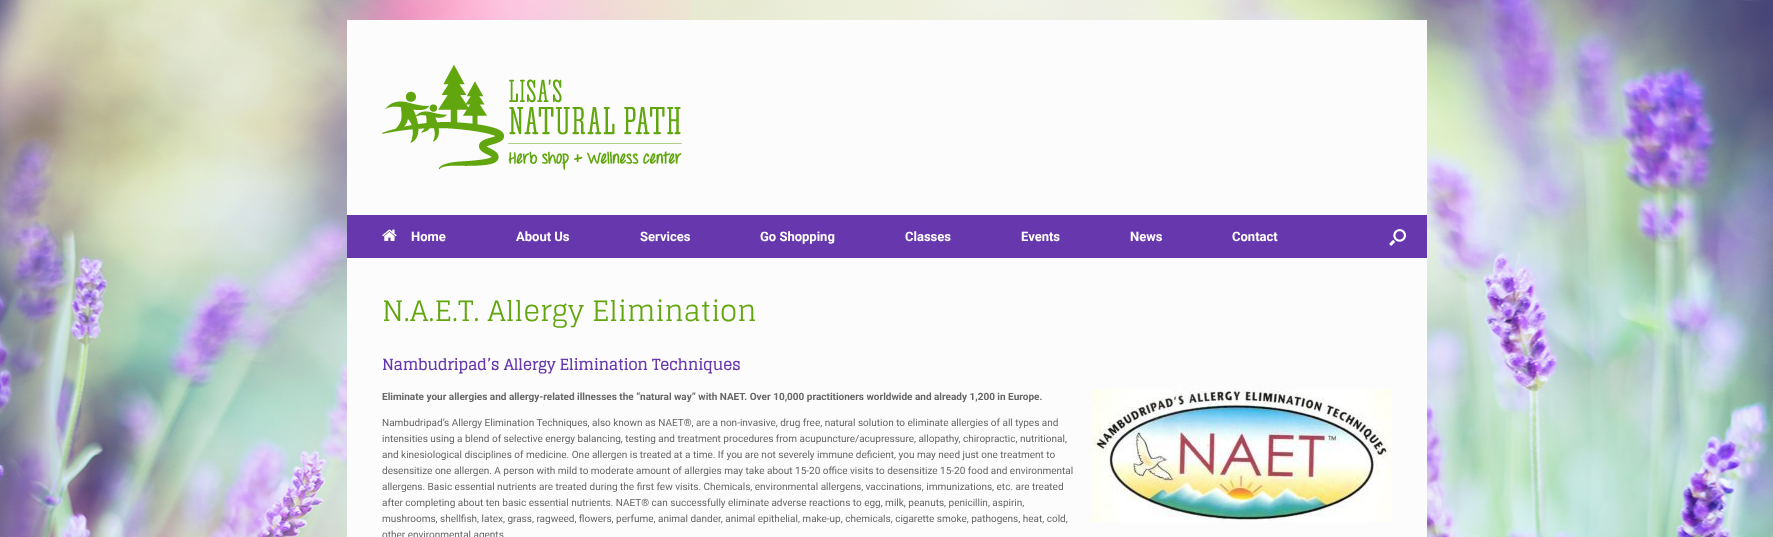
(async () => {
    const canvas = document.querySelector("canvas");
    canvas.width = 1773;
    canvas.height = 537;
    const context = canvas.getContext("2d");
    context.miterLimit = 4;
    context.fontKerning = "normal";
    function write(s, x, y, font, color) {
        context.font = font;
        context.fillStyle = color;
        context.fillText(s, x, y);
    }
    function block(x, y, w, h, color) {
        context.fillStyle = color;
        context.fillRect(x, y, w, h);
    }
    async function photo(src, x, y, w, h) {
        const img = new Image();
        img.src = src;
        await img.decode();
        context.drawImage(img, x, y, w, h);
    }

    block(0, 0, 1773, 537, "rgb(255, 255, 255)");
    await photo("media/1.png", 0, 0, 1773, 537);
    block(347, 20, 1080, 195, "rgb(252, 252, 252)");
    await photo("media/2.png", 382, 65, 300, 105);
    block(347, 215, 1080, 43, "rgb(103, 55, 173)");
    await photo("media/3.png", 382, 229, 15, 12);
    write("Home", 411, 241, "bold 13px Roboto", "rgb(255, 255, 255)");
    write("About Us", 516, 241, "bold 13px Roboto", "rgb(255, 255, 255)");
    write("Services", 640, 241, "bold 13px Roboto", "rgb(255, 255, 255)");
    write("Go Shopping", 760, 241, "bold 13px Roboto", "rgb(255, 255, 255)");
    write("Classes", 905, 241, "bold 13px Roboto", "rgb(255, 255, 255)");
    write("Events", 1021, 241, "bold 13px Roboto", "rgb(255, 255, 255)");
    write("News", 1130, 241, "bold 13px Roboto", "rgb(255, 255, 255)");
    write("Contact", 1232, 241, "bold 13px Roboto", "rgb(255, 255, 255)");
    await photo("media/4.png", 1389, 229, 17, 17);
    block(347, 258, 1080, 279, "rgb(252, 252, 252)");
    write("N.A.E.T. Allergy Elimination", 382, 321, "28px Glegoo", "rgb(97, 166, 15)");
    write("Nambudripad’s Allergy Elimination Techniques", 382, 370, "bold 15px Glegoo", "rgb(103, 55, 173)");
    write("Eliminate your allergies and allergy-related illnesses the “natural way” with NAET. Over 10,000 practitioners worldwide and already 1,200 in Europe.", 382, 400, "bold 10px Roboto", "rgb(102, 102, 102)");
    await photo("media/5.png", 1092, 389, 300, 133);
    write("Nambudripad’s Allergy Elimination Techniques, also known as NAET®, are a non-invasive, drug free, natural solution to eliminate allergies of all types and", 382, 426, "10px Roboto", "rgb(102, 102, 102)");
    write("intensities using a blend of selective energy balancing, testing and treatment procedures from acupuncture/acupressure, allopathy, chiropractic, nutritional,", 382, 442, "10px Roboto", "rgb(102, 102, 102)");
    write("and kinesiological disciplines of medicine. One allergen is treated at a time. If you are not severely immune deficient, you may need just one treatment to", 382, 458, "10px Roboto", "rgb(102, 102, 102)");
    write("desensitize one allergen. A person with mild to moderate amount of allergies may take about 15-20 office visits to desensitize 15-20 food and environmental", 382, 474, "10px Roboto", "rgb(102, 102, 102)");
    write("allergens. Basic essential nutrients are treated during the first few visits. Chemicals, environmental allergens, vaccinations, immunizations, etc. are treated", 382, 490, "10px Roboto", "rgb(102, 102, 102)");
    write("after completing about ten basic essential nutrients. NAET® can successfully eliminate adverse reactions to egg, milk, peanuts, penicillin, aspirin,", 382, 506, "10px Roboto", "rgb(102, 102, 102)");
    write("mushrooms, shellfish, latex, grass, ragweed, flowers, perfume, animal dander, animal epithelial, make-up, chemicals, cigarette smoke, pathogens, heat, cold,", 382, 522, "10px Roboto", "rgb(102, 102, 102)");
    write("other environmental agents", 382, 538, "10px Roboto", "rgb(102, 102, 102)");
})();
